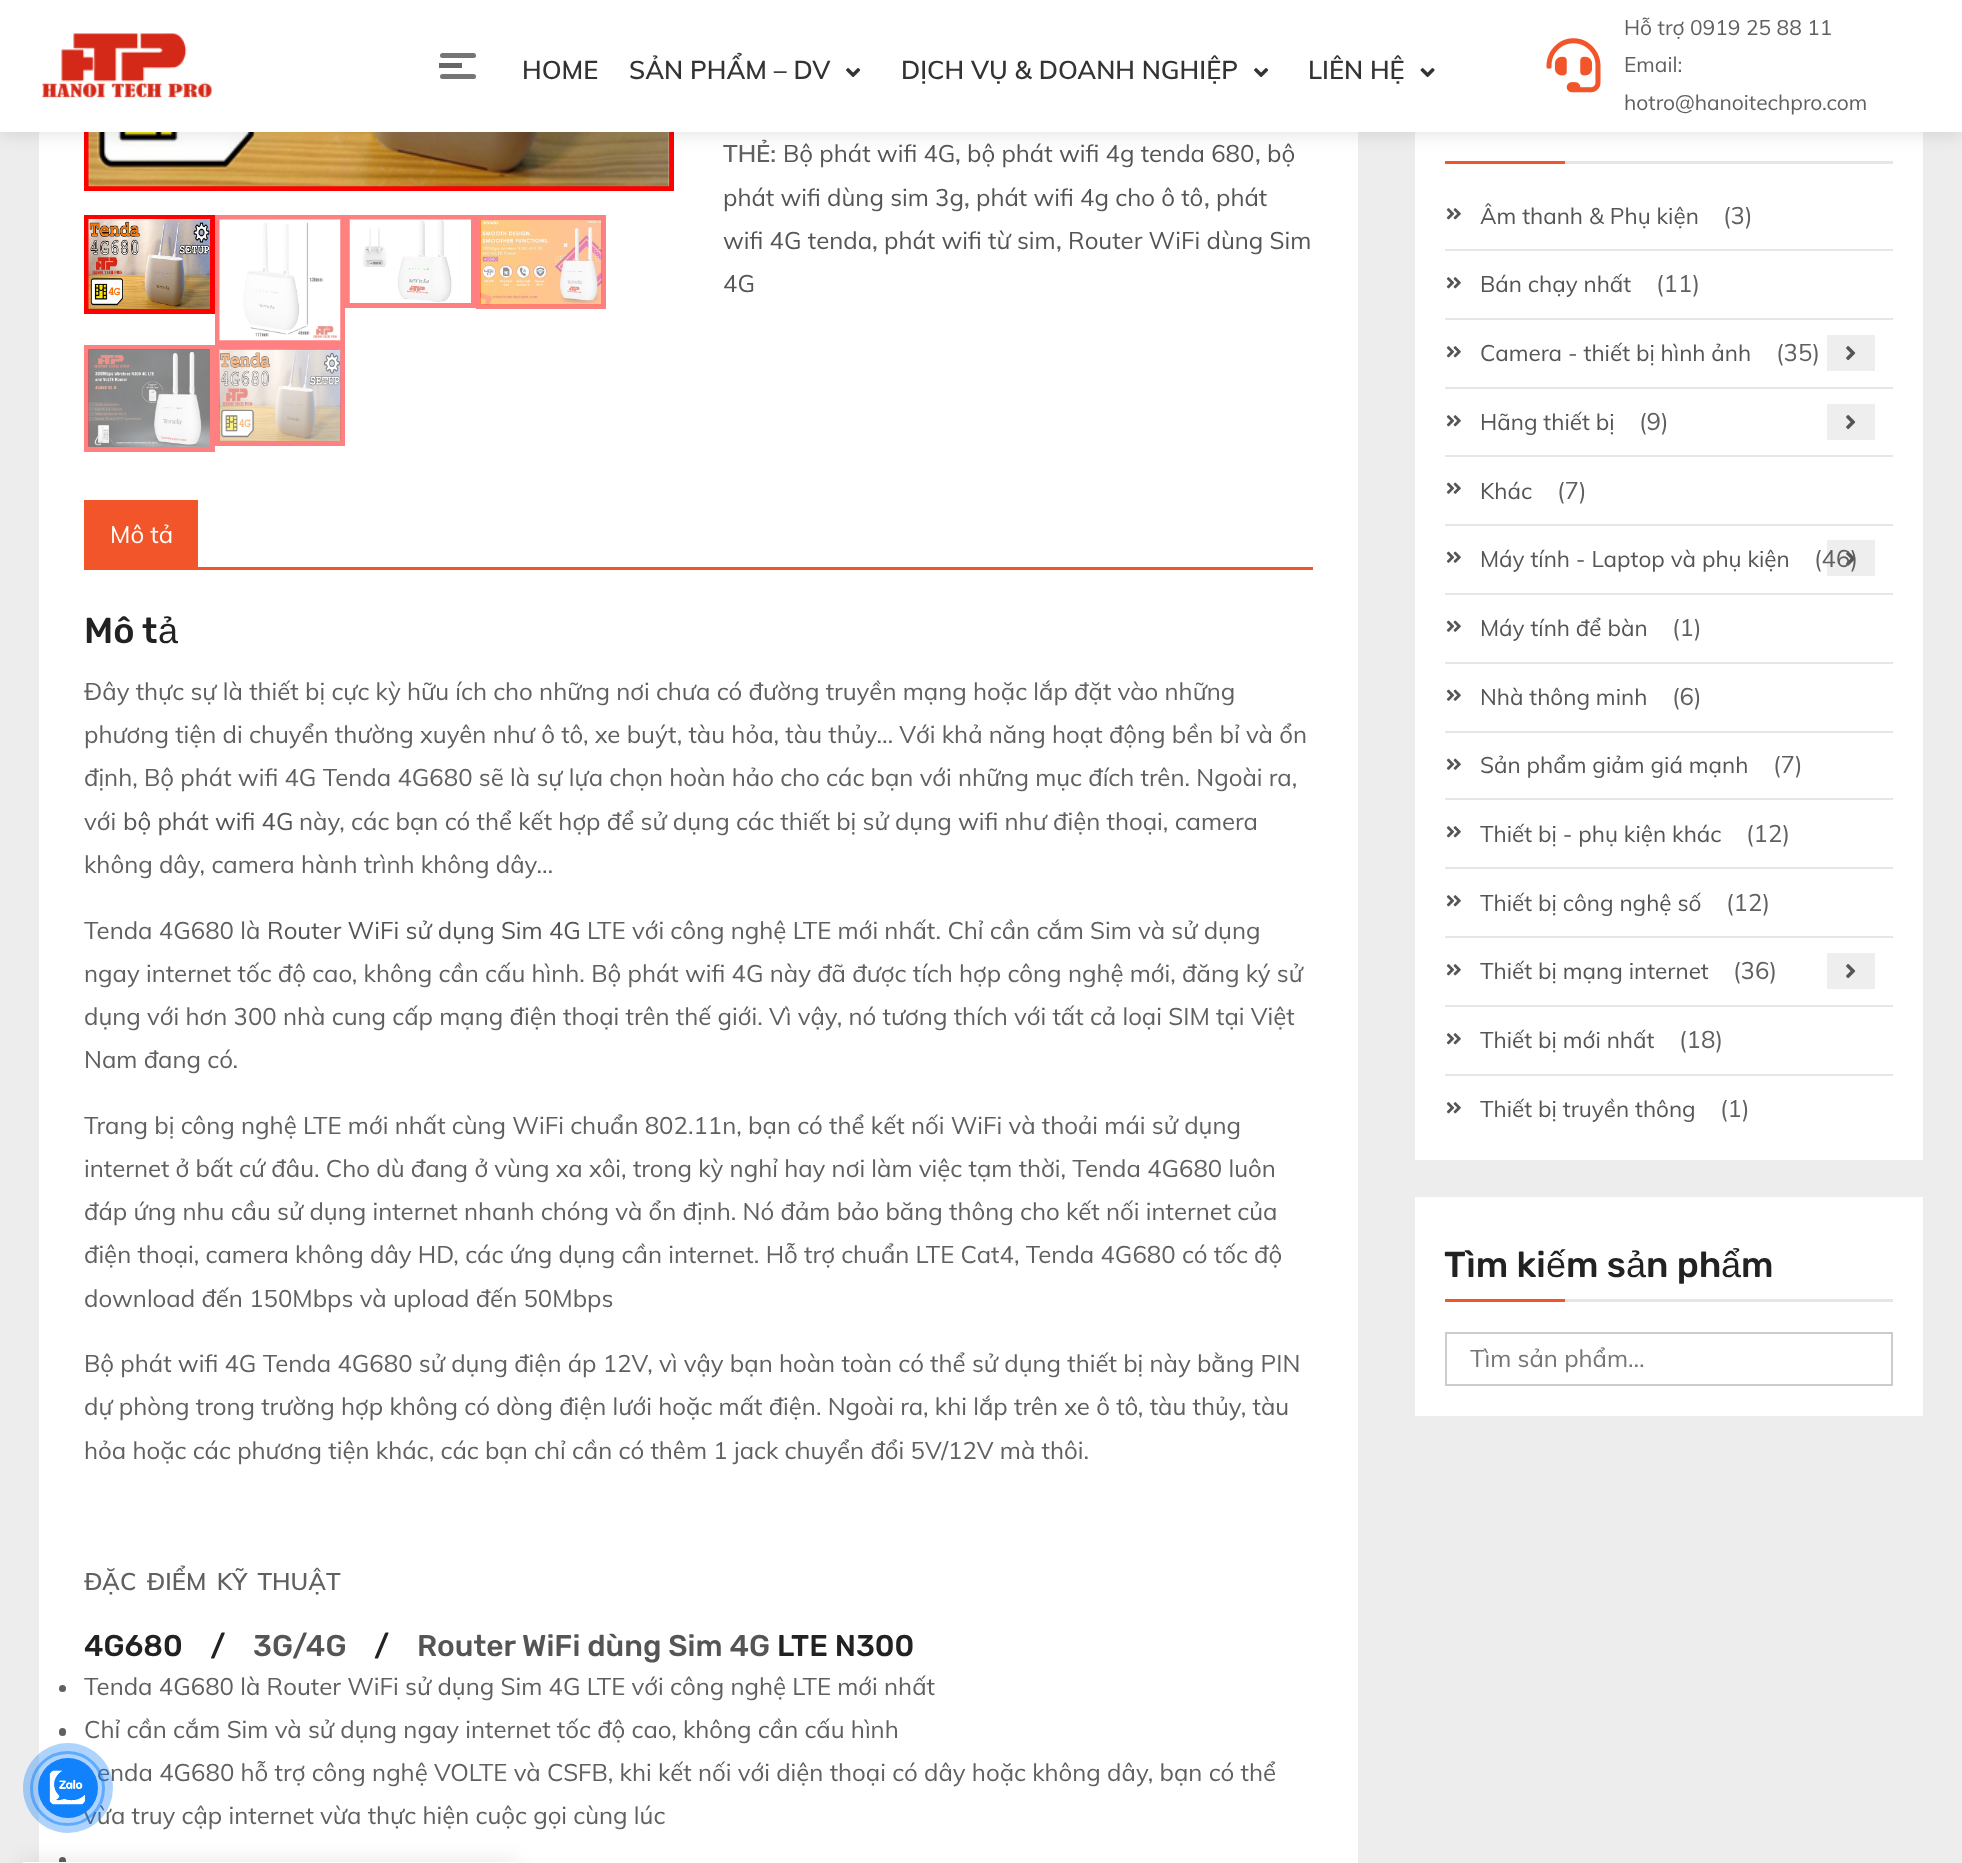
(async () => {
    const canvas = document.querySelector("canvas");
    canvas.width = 1962;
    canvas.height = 1863;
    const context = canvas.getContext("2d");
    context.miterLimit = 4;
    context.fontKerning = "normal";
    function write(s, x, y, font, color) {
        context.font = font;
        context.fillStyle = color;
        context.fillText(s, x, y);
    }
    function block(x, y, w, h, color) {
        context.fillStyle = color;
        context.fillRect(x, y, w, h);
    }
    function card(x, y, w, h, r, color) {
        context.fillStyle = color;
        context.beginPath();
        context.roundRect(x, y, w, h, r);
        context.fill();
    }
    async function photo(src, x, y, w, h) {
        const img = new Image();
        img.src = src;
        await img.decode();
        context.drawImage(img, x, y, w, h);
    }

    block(0, 0, 1962, 1863, "rgb(237, 237, 237)");
    block(39, 132, 1319, 1731, "rgb(255, 255, 255)");
    write("enda 4G680 hỗ trợ công nghệ VOLTE và CSFB, khi kết nối với diện thoại có dây hoặc không dây, bạn có thể", 97, 1781, "24px Muli", "rgb(96, 96, 96)");
    write("vừa truy cập internet vừa thực hiện cuộc gọi cùng lúc", 84, 1824, "24px Muli", "rgb(96, 96, 96)");
    context.beginPath();
    context.arc(67.5, 1788.5, 36, 0, Math.PI * 2);
    context.strokeStyle = "rgba(17, 130, 252, 0.5)";
    context.lineWidth = 3;
    context.stroke();
    write("Chỉ cần cắm Sim và sử dụng ngay internet tốc độ cao, không cần cấu hình", 84, 1738, "24px Muli", "rgb(96, 96, 96)");
    card(59, 1857, 7, 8, 3.5, "rgb(96, 96, 96)");
    context.fillStyle = "rgba(0, 0, 0, 0.1)";
    context.filter = "blur(11px)";
    context.beginPath();
    context.rect(23, 1862, 495, 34);
    context.fill();
    context.filter = "none";
    context.fillStyle = "rgba(17, 130, 252, 0.34)";
    context.beginPath();
    context.arc(68, 1788, 45, 0, Math.PI * 2);
    context.fill();
    context.fillStyle = "rgb(17, 130, 252)";
    context.beginPath();
    context.arc(68, 1788, 30, 0, Math.PI * 2);
    context.fill();
    await photo("media/1.png", 49, 1770, 36, 35);
    context.strokeStyle = "rgb(255, 0, 0)";
    context.lineWidth = 5;
    context.strokeRect(86.5, -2.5, 585, 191);
    await photo("media/6.png", 88, 132, 583, 55);
    block(1415, 132, 508, 1028, "rgb(255, 255, 255)");
    block(1565, 161, 328, 3, "rgb(230, 230, 230)");
    block(1445, 161, 120, 3, "rgb(242, 85, 41)");
    context.fillStyle = "rgba(0, 0, 0, 0.1)";
    context.filter = "blur(9px)";
    context.beginPath();
    context.rect(0, 3, 1962, 132);
    context.fill();
    context.filter = "none";
    block(0, 0, 1962, 132, "rgb(255, 255, 255)");
    await photo("media/2.png", 42, 33, 170, 65);
    card(440, 53, 36, 5, 2.5, "rgb(117, 117, 117)");
    block(439, 63, 23, 5, "rgb(102, 102, 102)");
    card(440, 74, 36, 5, 2.5, "rgb(117, 117, 117)");
    write("HOME", 522, 79, "600 25.5px Muli", "rgb(51, 51, 51)");
    write("SẢN PHẨM – DV", 629, 79, "600 25.5px Muli", "rgb(51, 51, 51)");
    await photo("media/3.png", 846, 68, 15, 10);
    write("DỊCH VỤ & DOANH NGHIỆP", 901, 79, "600 25.5px Muli", "rgb(51, 51, 51)");
    await photo("media/3.png", 1254, 68, 15, 10);
    write("LIÊN HỆ", 1308, 79, "600 25.5px Muli", "rgb(51, 51, 51)");
    await photo("media/4.png", 1420, 68, 15, 10);
    await photo("media/5.png", 1546, 38, 55, 55);
    write("Hỗ trợ 0919 25 88 11", 1624, 35, "21px Muli", "rgb(96, 96, 96)");
    write("Email:", 1624, 72, "21px Muli", "rgb(96, 96, 96)");
    write("hotro@hanoitechpro.com", 1624, 110, "21px Muli", "rgb(96, 96, 96)");
    context.strokeRect(86.5, 217.5, 126, 94);
    await photo("media/7.png", 88, 219, 122, 90);
    context.strokeStyle = "rgb(255, 128, 128)";
    context.strokeRect(217.5, 217.5, 125, 125);
    await photo("media/8.png", 219, 219, 122, 122);
    context.strokeRect(347.5, 217.5, 126, 88);
    await photo("media/9.png", 349, 219, 122, 84);
    context.strokeRect(478.5, 217.5, 125, 89);
    await photo("media/10.png", 480, 219, 122, 86);
    context.strokeRect(86.5, 347.5, 126, 102);
    await photo("media/11.png", 88, 349, 122, 98);
    context.strokeRect(217.5, 347.5, 125, 96);
    await photo("media/12.png", 219, 349, 122, 92);
    write("THẺ:", 723, 162, "600 24px Muli", "rgb(96, 96, 96)");
    write("Bộ phát wifi 4G", 783, 162, "24px Muli", "rgb(85, 85, 85)");
    write(",", 955, 162, "600 24px Muli", "rgb(96, 96, 96)");
    write("bộ phát wifi 4g tenda 680", 967, 162, "24px Muli", "rgb(85, 85, 85)");
    write(",", 1255, 162, "600 24px Muli", "rgb(96, 96, 96)");
    write("bộ", 1267, 162, "24px Muli", "rgb(85, 85, 85)");
    write("phát wifi dùng sim 3g", 723, 206, "24px Muli", "rgb(85, 85, 85)");
    write(",", 964, 206, "600 24px Muli", "rgb(96, 96, 96)");
    write("phát wifi 4g cho ô tô", 976, 206, "24px Muli", "rgb(85, 85, 85)");
    write(",", 1204, 206, "600 24px Muli", "rgb(96, 96, 96)");
    write("phát", 1216, 206, "24px Muli", "rgb(85, 85, 85)");
    write("wifi 4G tenda", 723, 249, "24px Muli", "rgb(85, 85, 85)");
    write(",", 872, 249, "600 24px Muli", "rgb(96, 96, 96)");
    write("phát wifi từ sim", 884, 249, "24px Muli", "rgb(85, 85, 85)");
    write(",", 1056, 249, "600 24px Muli", "rgb(96, 96, 96)");
    write("Router WiFi dùng Sim", 1068, 249, "24px Muli", "rgb(85, 85, 85)");
    write("4G", 723, 292, "24px Muli", "rgb(85, 85, 85)");
    block(84, 500, 114, 70, "rgb(242, 85, 41)");
    write("Mô tả", 110, 543, "24px Muli", "rgb(255, 255, 255)");
    block(198, 567, 1115, 3, "rgb(242, 85, 41)");
    write("Mô t", 84, 643, "500 36px Rubik", "rgb(34, 34, 34)");
    write("ả", 158, 643, "36px Liberation Sans", "rgb(34, 34, 34)");
    write("Đây thực sự là thiết bị cực kỳ hữu ích cho những nơi chưa có đường truyền mạng hoặc lắp đặt vào những", 84, 700, "24px Muli", "rgb(96, 96, 96)");
    write("phương tiện di chuyển thường xuyên như ô tô, xe buýt, tàu hỏa, tàu thủy… Với khả năng hoạt động bền bỉ và ổn", 84, 743, "24px Muli", "rgb(96, 96, 96)");
    write("định, Bộ phát wifi 4G Tenda 4G680 sẽ là sự lựa chọn hoàn hảo cho các bạn với những mục đích trên. Ngoài ra,", 84, 786, "24px Muli", "rgb(96, 96, 96)");
    write("với", 84, 830, "24px Muli", "rgb(96, 96, 96)");
    write("bộ phát wifi 4G", 123, 830, "24px Muli", "rgb(85, 85, 85)");
    write("này, các bạn có thể kết hợp để sử dụng các thiết bị sử dụng wifi như điện thoại, camera", 299, 830, "24px Muli", "rgb(96, 96, 96)");
    write("không dây, camera hành trình không dây…", 84, 873, "24px Muli", "rgb(96, 96, 96)");
    write("Tenda 4G680 là", 84, 939, "24px Muli", "rgb(96, 96, 96)");
    write("Router WiFi sử dụng Sim 4G", 267, 939, "24px Muli", "rgb(85, 85, 85)");
    write("LTE với công nghệ LTE mới nhất. Chỉ cần cắm Sim và sử dụng", 587, 939, "24px Muli", "rgb(96, 96, 96)");
    write("ngay internet tốc độ cao, không cần cấu hình. Bộ phát wifi 4G này đã được tích hợp công nghệ mới, đăng ký sử", 84, 982, "24px Muli", "rgb(96, 96, 96)");
    write("dụng với hơn 300 nhà cung cấp mạng điện thoại trên thế giới. Vì vậy, nó tương thích với tất cả loại SIM tại Việt", 84, 1025, "24px Muli", "rgb(96, 96, 96)");
    write("Nam đang có.", 84, 1068, "24px Muli", "rgb(96, 96, 96)");
    write("Trang bị công nghệ LTE mới nhất cùng WiFi chuẩn 802.11n, bạn có thể kết nối WiFi và thoải mái sử dụng", 84, 1134, "24px Muli", "rgb(96, 96, 96)");
    write("internet ở bất cứ đâu. Cho dù đang ở vùng xa xôi, trong kỳ nghỉ hay nơi làm việc tạm thời, Tenda 4G680 luôn", 84, 1177, "24px Muli", "rgb(96, 96, 96)");
    write("đáp ứng nhu cầu sử dụng internet nhanh chóng và ổn định. Nó đảm bảo băng thông cho kết nối internet của", 84, 1220, "24px Muli", "rgb(96, 96, 96)");
    write("điện thoại, camera không dây HD, các ứng dụng cần internet. Hỗ trợ chuẩn LTE Cat4, Tenda 4G680 có tốc độ", 84, 1263, "24px Muli", "rgb(96, 96, 96)");
    write("download đến 150Mbps và upload đến 50Mbps", 84, 1307, "24px Muli", "rgb(96, 96, 96)");
    write("Bộ phát wifi 4G Tenda 4G680 sử dụng điện áp 12V, vì vậy bạn hoàn toàn có thể sử dụng thiết bị này bằng PIN", 84, 1372, "24px Muli", "rgb(96, 96, 96)");
    write("dự phòng trong trường hợp không có dòng điện lưới hoặc mất điện. Ngoài ra, khi lắp trên xe ô tô, tàu thủy, tàu", 84, 1415, "24px Muli", "rgb(96, 96, 96)");
    write("hỏa hoặc các phương tiện khác, các bạn chỉ cần có thêm 1 jack chuyển đổi 5V/12V mà thôi.", 84, 1459, "24px Muli", "rgb(96, 96, 96)");
    context.wordSpacing = "4px";
    write("ĐẶC ĐIỂM KỸ THUẬT", 84, 1590, "600 24px Muli", "rgb(96, 96, 96)");
    context.wordSpacing = "0px";
    write("4G680    /", 84, 1656, "500 30px Rubik", "rgb(34, 34, 34)");
    write("3G/4G", 253, 1656, "500 30px Rubik", "rgb(85, 85, 85)");
    write("/", 374, 1656, "500 30px Rubik", "rgb(34, 34, 34)");
    write("Router WiFi dùng Sim 4G", 417, 1656, "500 30px Rubik", "rgb(85, 85, 85)");
    write("LTE N300", 777, 1656, "500 30px Rubik", "rgb(34, 34, 34)");
    context.fillStyle = "rgb(96, 96, 96)";
    context.beginPath();
    context.arc(62.5, 1688.5, 3.5, 0, Math.PI * 2);
    context.fill();
    write("Tenda 4G680 là Router WiFi sử dụng Sim 4G LTE với công nghệ LTE mới nhất", 84, 1695, "24px Muli", "rgb(96, 96, 96)");
    card(59, 1728, 7, 8, 3.5, "rgb(96, 96, 96)");
    block(1445, 249, 448, 2, "rgb(230, 230, 230)");
    await photo("media/13.png", 1446, 208, 15, 12);
    write("Âm thanh & Phụ kiện", 1480, 224, "22.5px Muli", "rgb(85, 85, 85)");
    write("(3)", 1723, 224, "24px Muli", "rgb(96, 96, 96)");
    block(1445, 318, 448, 2, "rgb(230, 230, 230)");
    await photo("media/13.png", 1446, 277, 15, 12);
    write("Bán chạy nhất", 1480, 292, "22.5px Muli", "rgb(85, 85, 85)");
    write("(11)", 1656, 292, "24px Muli", "rgb(96, 96, 96)");
    block(1445, 387, 448, 2, "rgb(230, 230, 230)");
    await photo("media/13.png", 1446, 346, 15, 12);
    write("Camera - thiết bị hình ảnh", 1480, 361, "22.5px Muli", "rgb(85, 85, 85)");
    write("(35)", 1776, 361, "24px Muli", "rgb(96, 96, 96)");
    block(1827, 335, 48, 36, "rgb(238, 238, 238)");
    await photo("media/14.png", 1846, 346, 10, 15);
    block(1445, 455, 448, 2, "rgb(230, 230, 230)");
    await photo("media/13.png", 1446, 415, 15, 12);
    write("Hãng thiết bị", 1480, 430, "22.5px Muli", "rgb(85, 85, 85)");
    write("(9)", 1639, 430, "24px Muli", "rgb(96, 96, 96)");
    block(1827, 404, 48, 36, "rgb(238, 238, 238)");
    await photo("media/14.png", 1846, 415, 10, 15);
    block(1445, 524, 448, 2, "rgb(230, 230, 230)");
    await photo("media/15.png", 1446, 482, 15, 12);
    write("Khác", 1480, 499, "22.5px Muli", "rgb(85, 85, 85)");
    write("(7)", 1557, 499, "24px Muli", "rgb(96, 96, 96)");
    block(1445, 593, 448, 2, "rgb(230, 230, 230)");
    await photo("media/15.png", 1446, 551, 15, 12);
    write("Máy tính - Laptop và phụ kiện", 1480, 567, "22.5px Muli", "rgb(85, 85, 85)");
    block(1827, 540, 48, 36, "rgb(238, 238, 238)");
    await photo("media/16.png", 1846, 551, 10, 15);
    write("(46)", 1814, 567, "24px Muli", "rgb(96, 96, 96)");
    block(1445, 662, 448, 2, "rgb(230, 230, 230)");
    await photo("media/15.png", 1446, 620, 15, 12);
    write("Máy tính để bàn", 1480, 636, "22.5px Muli", "rgb(85, 85, 85)");
    write("(1)", 1672, 636, "24px Muli", "rgb(96, 96, 96)");
    block(1445, 731, 448, 2, "rgb(230, 230, 230)");
    await photo("media/15.png", 1446, 689, 15, 12);
    write("Nhà thông minh", 1480, 705, "22.5px Muli", "rgb(85, 85, 85)");
    write("(6)", 1672, 705, "24px Muli", "rgb(96, 96, 96)");
    block(1445, 798, 448, 2, "rgb(230, 230, 230)");
    await photo("media/15.png", 1446, 758, 15, 12);
    write("Sản phẩm giảm giá mạnh", 1480, 773, "22.5px Muli", "rgb(85, 85, 85)");
    write("(7)", 1773, 773, "24px Muli", "rgb(96, 96, 96)");
    block(1445, 867, 448, 2, "rgb(230, 230, 230)");
    await photo("media/13.png", 1446, 826, 15, 12);
    write("Thiết bị - phụ kiện khác", 1480, 842, "22.5px Muli", "rgb(85, 85, 85)");
    write("(12)", 1746, 842, "24px Muli", "rgb(96, 96, 96)");
    block(1445, 936, 448, 2, "rgb(230, 230, 230)");
    await photo("media/13.png", 1446, 895, 15, 12);
    write("Thiết bị công nghệ số", 1480, 911, "22.5px Muli", "rgb(85, 85, 85)");
    write("(12)", 1726, 911, "24px Muli", "rgb(96, 96, 96)");
    block(1445, 1005, 448, 2, "rgb(230, 230, 230)");
    await photo("media/13.png", 1446, 964, 15, 12);
    write("Thiết bị mạng internet", 1480, 979, "22.5px Muli", "rgb(85, 85, 85)");
    write("(36)", 1733, 979, "24px Muli", "rgb(96, 96, 96)");
    block(1827, 953, 48, 36, "rgb(238, 238, 238)");
    await photo("media/14.png", 1846, 964, 10, 15);
    block(1445, 1074, 448, 2, "rgb(230, 230, 230)");
    await photo("media/13.png", 1446, 1033, 15, 12);
    write("Thiết bị mới nhất", 1480, 1048, "22.5px Muli", "rgb(85, 85, 85)");
    write("(18)", 1679, 1048, "24px Muli", "rgb(96, 96, 96)");
    await photo("media/13.png", 1446, 1102, 15, 12);
    write("Thiết bị truyền thông", 1480, 1117, "22.5px Muli", "rgb(85, 85, 85)");
    write("(1)", 1720, 1117, "24px Muli", "rgb(96, 96, 96)");
    block(1415, 1197, 508, 219, "rgb(255, 255, 255)");
    block(1565, 1299, 328, 3, "rgb(230, 230, 230)");
    write("Tìm ki", 1444, 1277, "500 36px Rubik", "rgb(34, 34, 34)");
    write("ế", 1546, 1277, "36px Liberation Sans", "rgb(34, 34, 34)");
    write("m s", 1566, 1277, "500 36px Rubik", "rgb(34, 34, 34)");
    write("ả", 1626, 1277, "36px Liberation Sans", "rgb(34, 34, 34)");
    write("n ph", 1646, 1277, "500 36px Rubik", "rgb(34, 34, 34)");
    write("ẩ", 1721, 1277, "36px Liberation Sans", "rgb(34, 34, 34)");
    write("m", 1741, 1277, "500 36px Rubik", "rgb(34, 34, 34)");
    block(1445, 1299, 120, 3, "rgb(242, 85, 41)");
    context.strokeStyle = "rgb(204, 204, 204)";
    context.lineWidth = 2;
    context.strokeRect(1446, 1333, 446, 52);
    write("Tìm sản phẩm…", 1470, 1367, "24px Muli", "rgb(117, 117, 117)");
    block(23, 1862, 495, 1, "rgb(255, 255, 255)");
})();
